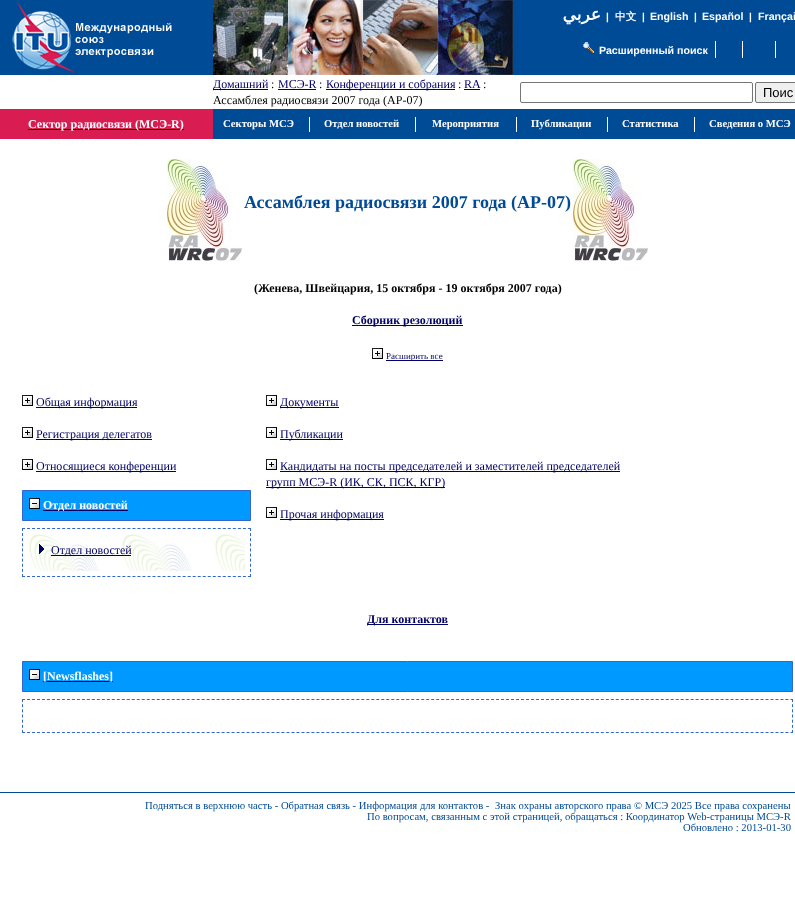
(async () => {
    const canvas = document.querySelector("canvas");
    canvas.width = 795;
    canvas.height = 923;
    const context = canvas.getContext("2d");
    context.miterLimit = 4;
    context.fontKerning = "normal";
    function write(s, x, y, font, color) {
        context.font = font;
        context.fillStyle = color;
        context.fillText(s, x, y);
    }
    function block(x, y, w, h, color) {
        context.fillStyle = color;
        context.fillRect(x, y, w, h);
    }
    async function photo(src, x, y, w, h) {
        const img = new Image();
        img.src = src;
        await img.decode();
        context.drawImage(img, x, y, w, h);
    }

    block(0, 0, 795, 923, "rgb(255, 255, 255)");
    block(0, 0, 795, 75, "rgb(0, 75, 150)");
    await photo("media/1.png", 12, 1, 160, 72);
    await photo("media/2.png", 213, 0, 300, 75);
    context.direction = "rtl";
    write("عربي", 601, 20, "bold 17px DejaVu Sans", "rgb(255, 255, 255)");
    context.direction = "ltr";
    write("|", 606, 20, "bold 10px Liberation Sans", "rgb(255, 255, 255)");
    write("中文", 615, 20, "bold 10.65px WenQuanYi Zen Hei", "rgb(255, 255, 255)");
    write("|", 642, 20, "bold 10px Liberation Sans", "rgb(255, 255, 255)");
    write("English", 650, 20, "bold 10.65px Liberation Sans", "rgb(255, 255, 255)");
    write("|", 694, 20, "bold 10px Liberation Sans", "rgb(255, 255, 255)");
    write("Español", 702, 20, "bold 10.65px Liberation Sans", "rgb(255, 255, 255)");
    write("|", 749, 20, "bold 10px Liberation Sans", "rgb(255, 255, 255)");
    write("Françai", 758, 20, "bold 10.65px Liberation Sans", "rgb(255, 255, 255)");
    block(715, 41, 1, 17, "rgb(255, 255, 255)");
    await photo("media/3.png", 583, 42, 11, 11);
    write("Расширенный поиск", 599, 54, "bold 10.65px Liberation Sans", "rgb(255, 255, 255)");
    block(742, 41, 1, 17, "rgb(255, 255, 255)");
    block(775, 41, 1, 17, "rgb(255, 255, 255)");
    block(213, 89, 55, 1, "rgb(0, 0, 102)");
    write("Домашний", 213, 88, "12px Liberation Serif", "rgb(0, 0, 102)");
    write(":", 271, 88, "12px Liberation Serif", "rgb(0, 0, 0)");
    write("МСЭ-R", 278, 88, "12px Liberation Serif", "rgb(0, 0, 102)");
    block(278, 89, 38, 1, "rgb(0, 0, 102)");
    write(":", 319, 88, "12px Liberation Serif", "rgb(0, 0, 0)");
    block(326, 89, 129, 1, "rgb(0, 0, 102)");
    write("Конференции и собрания", 326, 88, "12px Liberation Serif", "rgb(0, 0, 102)");
    write(":", 458, 88, "12px Liberation Serif", "rgb(0, 0, 0)");
    write("RA", 464, 88, "12px Liberation Serif", "rgb(0, 0, 102)");
    block(464, 89, 16, 1, "rgb(0, 0, 102)");
    write(":", 483, 88, "12px Liberation Serif", "rgb(0, 0, 0)");
    write("Ассамблея радиосвязи 2007 года (АР-07)", 213, 104, "12px Liberation Serif", "rgb(0, 0, 0)");
    context.beginPath();
    context.roundRect(520.5, 82.5, 232, 20, 1.5);
    context.strokeStyle = "rgb(118, 118, 118)";
    context.stroke();
    context.fillStyle = "rgb(239, 239, 239)";
    context.beginPath();
    context.roundRect(755.5, 82.5, 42, 20, 1.5);
    context.fill();
    context.stroke();
    write("Поис", 763, 97, "13px Liberation Sans", "rgb(0, 0, 0)");
    block(0, 109, 213, 30, "rgb(217, 29, 82)");
    block(28, 129, 156, 1, "rgb(0, 0, 102)");
    write("Сектор радиосвязи (МСЭ-R)", 28, 128, "bold 12px Liberation Serif", "rgb(255, 255, 255)");
    block(213, 109, 582, 30, "rgb(0, 75, 150)");
    block(0, 792, 795, 1, "rgb(0, 75, 150)");
    await photo("media/4.png", 167, 159, 75, 102);
    write("Ассамблея радиосвязи 2007 года (АР-07)", 244, 208, "bold 18px Liberation Serif", "rgb(0, 75, 150)");
    await photo("media/4.png", 573, 159, 75, 102);
    write("(Женева, Швейцария, 15 октября - 19 октября 2007 года)", 254, 292, "bold 12px Liberation Serif", "rgb(0, 0, 0)");
    block(352, 325, 111, 1, "rgb(0, 0, 102)");
    write("Сборник резолюций", 352, 324, "bold 12px Liberation Serif", "rgb(0, 0, 102)");
    await photo("media/5.png", 372, 348, 11, 11);
    block(386, 360, 57, 1, "rgb(0, 0, 102)");
    write("Расширить все", 386, 359, "9px Liberation Serif", "rgb(0, 0, 102)");
    await photo("media/5.png", 22, 395, 11, 11);
    block(36, 407, 101, 1, "rgb(0, 0, 102)");
    write("Общая информация", 36, 406, "12px Liberation Serif", "rgb(0, 0, 102)");
    await photo("media/5.png", 22, 427, 11, 11);
    block(36, 439, 116, 1, "rgb(0, 0, 102)");
    write("Регистрация делегатов", 36, 438, "12px Liberation Serif", "rgb(0, 0, 102)");
    await photo("media/5.png", 22, 459, 11, 11);
    block(36, 471, 140, 1, "rgb(0, 0, 102)");
    write("Относящиеся конференции", 36, 470, "12px Liberation Serif", "rgb(0, 0, 102)");
    context.fillStyle = "rgb(0, 153, 255)";
    context.beginPath();
    context.rect(22.5, 490.5, 228, 30);
    context.fill();
    context.strokeStyle = "rgb(51, 102, 204)";
    context.stroke();
    await photo("media/6.png", 29, 498, 11, 11);
    block(43, 510, 85, 1, "rgb(0, 0, 102)");
    write("Отдел новостей", 43, 509, "bold 12px Liberation Serif", "rgb(255, 255, 255)");
    context.beginPath();
    context.moveTo(22, 528.5);
    context.lineTo(251, 528.5);
    context.setLineDash([3, 2.02]);
    context.stroke();
    context.beginPath();
    context.moveTo(250.5, 528);
    context.lineTo(250.5, 577);
    context.setLineDash([3, 2.11]);
    context.stroke();
    context.beginPath();
    context.moveTo(22, 576.5);
    context.lineTo(251, 576.5);
    context.setLineDash([3, 2.02]);
    context.stroke();
    context.beginPath();
    context.moveTo(22.5, 528);
    context.lineTo(22.5, 577);
    context.setLineDash([3, 2.11]);
    context.stroke();
    await photo("media/7.png", 28, 534, 217, 37);
    await photo("media/8.png", 39, 544, 5, 10);
    block(51, 555, 80, 1, "rgb(0, 0, 102)");
    write("Отдел новостей", 51, 554, "12px Liberation Serif", "rgb(0, 0, 102)");
    await photo("media/5.png", 266, 395, 11, 11);
    block(280, 407, 59, 1, "rgb(0, 0, 102)");
    write("Документы", 280, 406, "12px Liberation Serif", "rgb(0, 0, 102)");
    await photo("media/5.png", 266, 427, 11, 11);
    block(280, 439, 63, 1, "rgb(0, 0, 102)");
    write("Публикации", 280, 438, "12px Liberation Serif", "rgb(0, 0, 102)");
    await photo("media/5.png", 266, 459, 11, 11);
    block(280, 471, 340, 1, "rgb(0, 0, 102)");
    write("Кандидаты на посты председателей и заместителей председателей", 280, 470, "12px Liberation Serif", "rgb(0, 0, 102)");
    block(266, 487, 179, 1, "rgb(0, 0, 102)");
    write("групп МСЭ-R (ИК, СК, ПСК, КГР)", 266, 486, "12px Liberation Serif", "rgb(0, 0, 102)");
    await photo("media/5.png", 266, 507, 11, 11);
    block(280, 519, 104, 1, "rgb(0, 0, 102)");
    write("Прочая информация", 280, 518, "12px Liberation Serif", "rgb(0, 0, 102)");
    block(367, 624, 81, 1, "rgb(0, 0, 102)");
    write("Для контактов", 367, 623, "bold 12px Liberation Serif", "rgb(0, 0, 102)");
    context.fillStyle = "rgb(0, 153, 255)";
    context.beginPath();
    context.rect(22.5, 661.5, 770, 30);
    context.fill();
    context.setLineDash([]);
    context.stroke();
    await photo("media/6.png", 29, 669, 11, 11);
    block(43, 681, 70, 1, "rgb(0, 0, 102)");
    write("[Newsflashes]", 43, 680, "bold 12px Liberation Serif", "rgb(255, 255, 255)");
    context.beginPath();
    context.moveTo(22, 699.5);
    context.lineTo(793, 699.5);
    context.setLineDash([3, 1.99]);
    context.stroke();
    context.beginPath();
    context.moveTo(792.5, 699);
    context.lineTo(792.5, 733);
    context.setLineDash([3, 2.17]);
    context.stroke();
    context.beginPath();
    context.moveTo(22, 732.5);
    context.lineTo(793, 732.5);
    context.setLineDash([3, 1.99]);
    context.stroke();
    context.beginPath();
    context.moveTo(22.5, 699);
    context.lineTo(22.5, 733);
    context.setLineDash([3, 2.17]);
    context.stroke();
    write("Подняться в верхнюю часть - Обратная связь - Информация для контактов -", 145, 809, "10.65px Liberation Serif", "rgb(0, 75, 150)");
    write("Знак охраны авторского права © МСЭ 2025 Все права сохранены", 495, 809, "10.65px Liberation Serif", "rgb(0, 75, 150)");
    write("По вопросам, связанным с этой страницей, обращаться : Координатор Web-страницы МСЭ-R", 367, 820, "10.65px Liberation Serif", "rgb(0, 75, 150)");
    write("Обновлено : 2013-01-30", 683, 831, "10.65px Liberation Serif", "rgb(0, 75, 150)");
    write("Секторы МСЭ", 223, 127, "bold 10.65px Liberation Serif", "rgb(255, 255, 255)");
    block(309, 117, 1, 15, "rgb(255, 255, 255)");
    write("Отдел новостей", 324, 127, "bold 10.65px Liberation Serif", "rgb(255, 255, 255)");
    block(415, 117, 1, 15, "rgb(255, 255, 255)");
    write("Мероприятия", 432, 127, "bold 10.65px Liberation Serif", "rgb(255, 255, 255)");
    block(516, 117, 1, 15, "rgb(255, 255, 255)");
    write("Публикации", 531, 127, "bold 10.65px Liberation Serif", "rgb(255, 255, 255)");
    block(607, 117, 1, 15, "rgb(255, 255, 255)");
    write("Статистика", 622, 127, "bold 10.65px Liberation Serif", "rgb(255, 255, 255)");
    block(694, 117, 1, 15, "rgb(255, 255, 255)");
    write("Сведения о МСЭ", 709, 127, "bold 10.65px Liberation Serif", "rgb(255, 255, 255)");
})();
